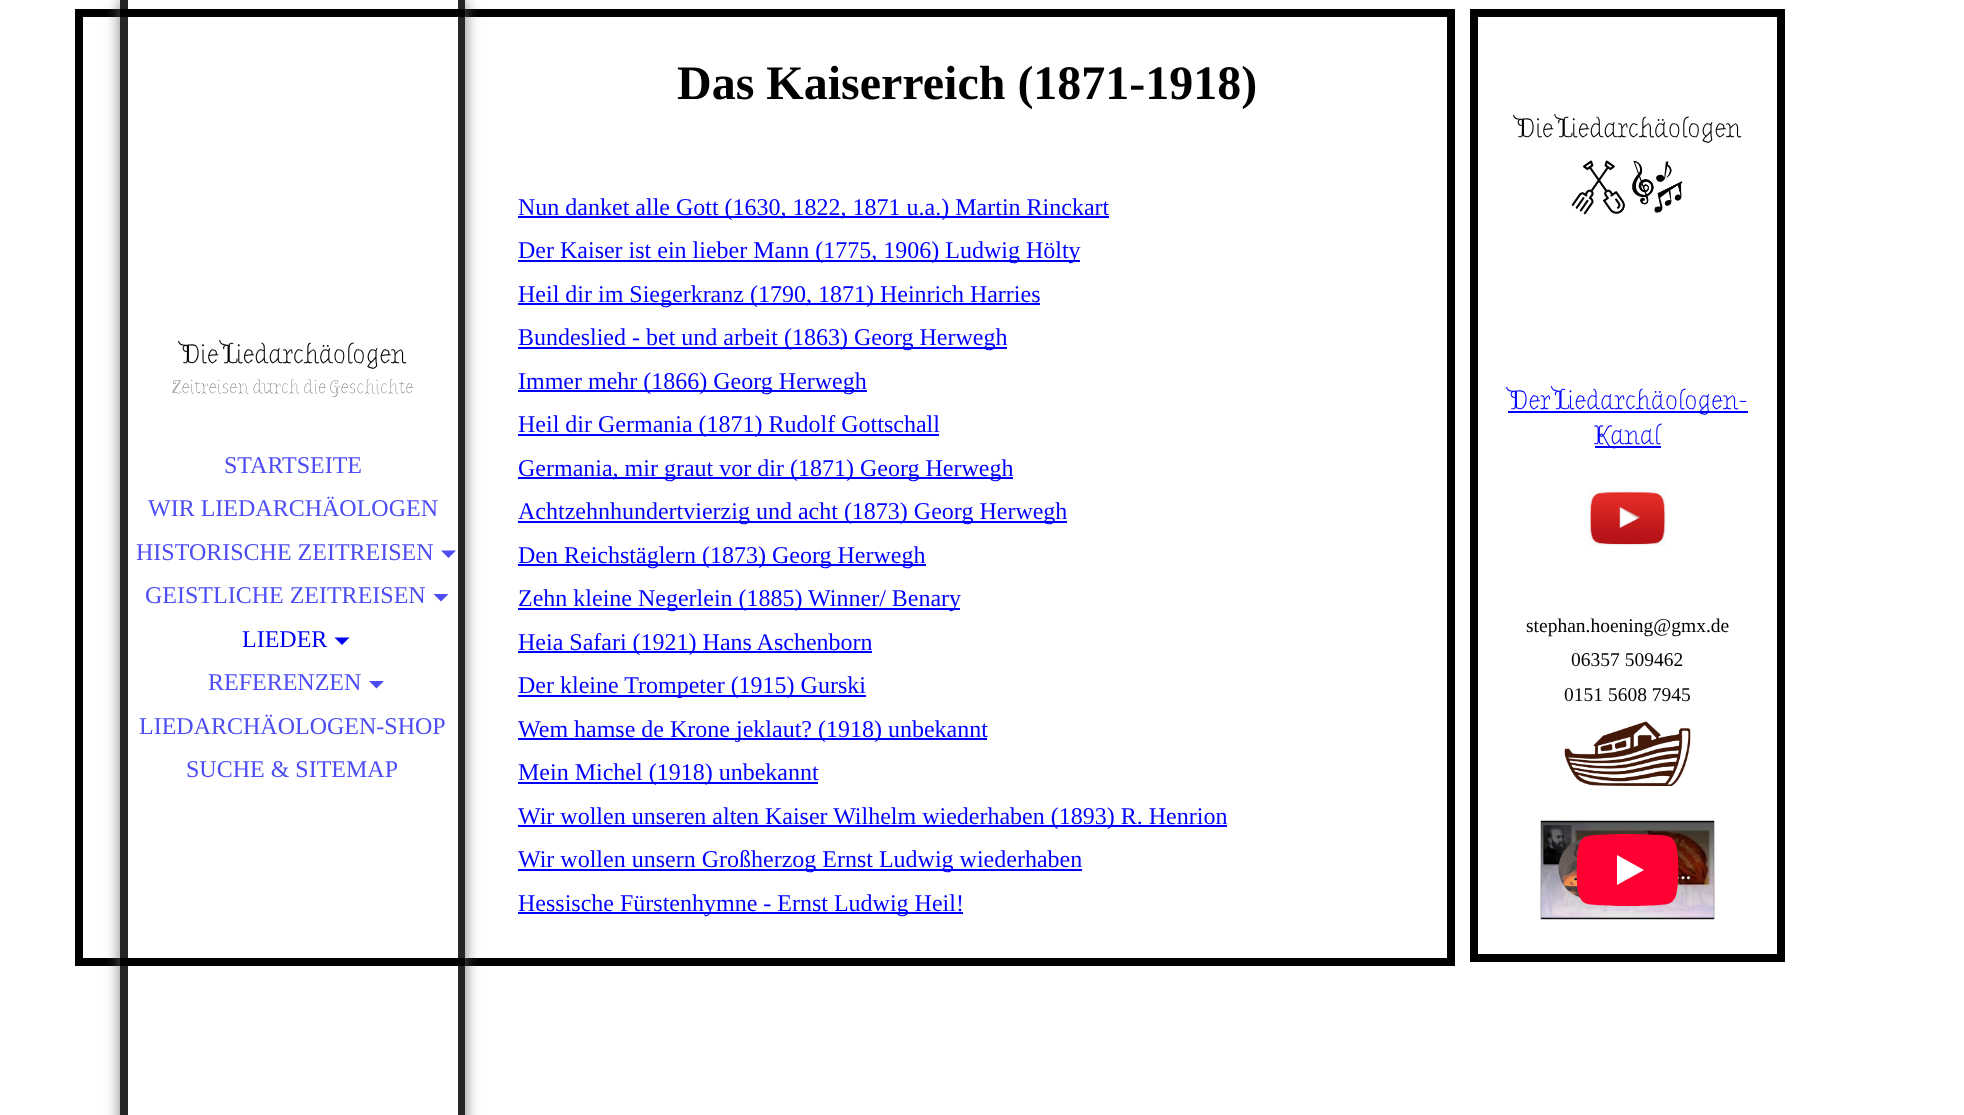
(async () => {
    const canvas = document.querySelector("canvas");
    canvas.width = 1964;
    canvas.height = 1115;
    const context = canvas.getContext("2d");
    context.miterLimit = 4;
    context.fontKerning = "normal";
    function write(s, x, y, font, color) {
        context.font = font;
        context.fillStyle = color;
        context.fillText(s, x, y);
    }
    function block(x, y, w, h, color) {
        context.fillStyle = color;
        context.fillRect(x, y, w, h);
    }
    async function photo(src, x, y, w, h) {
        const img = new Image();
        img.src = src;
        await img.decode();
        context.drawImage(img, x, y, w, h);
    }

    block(0, 0, 1964, 1115, "rgb(255, 255, 255)");
    context.strokeStyle = "rgb(0, 0, 0)";
    context.lineWidth = 8;
    context.strokeRect(79, 13, 1372, 949);
    context.save();
    context.beginPath();
    context.moveTo(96, 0);
    context.lineTo(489, 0);
    context.lineTo(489, 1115);
    context.lineTo(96, 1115);
    context.closePath();
    context.moveTo(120, 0);
    context.lineTo(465, 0);
    context.lineTo(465, 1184);
    context.lineTo(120, 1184);
    context.closePath();
    context.clip("evenodd");
    context.fillStyle = "rgba(102, 102, 102, 0.85)";
    context.filter = "blur(7.5px)";
    context.beginPath();
    context.rect(120, 0, 345, 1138);
    context.fill();
    context.filter = "none";
    context.restore();
    block(458, 0, 7, 1115, "rgba(0, 0, 0, 0.85)");
    block(120, 0, 8, 1115, "rgba(0, 0, 0, 0.85)");
    write("Das Kaiserreich (1871-1918)", 677, 99, "bold 48px Liberation Serif", "rgb(0, 0, 0)");
    block(518, 216, 591, 2, "rgb(0, 0, 255)");
    write("Nun danket alle Gott (1630, 1822, 1871 u.a.) Martin Rinckart", 518, 215, "24px Liberation Serif", "rgb(0, 0, 255)");
    block(518, 260, 562, 2, "rgb(0, 0, 238)");
    write("Der Kaiser ist ein lieber Mann (1775, 1906) Ludwig Hölty", 518, 258, "24px Liberation Serif", "rgb(0, 0, 255)");
    block(518, 303, 522, 2, "rgb(0, 0, 255)");
    write("Heil dir im Siegerkranz (1790, 1871) Heinrich Harries", 518, 302, "24px Liberation Serif", "rgb(0, 0, 255)");
    block(518, 347, 489, 2, "rgb(0, 0, 255)");
    write("Bundeslied - bet und arbeit (1863) Georg Herwegh", 518, 345, "24px Liberation Serif", "rgb(0, 0, 255)");
    block(518, 390, 349, 2, "rgb(0, 0, 255)");
    write("Immer mehr (1866) Georg Herwegh", 518, 389, "24px Liberation Serif", "rgb(0, 0, 255)");
    block(518, 434, 421, 2, "rgb(0, 0, 255)");
    write("Heil dir Germania (1871) Rudolf Gottschall", 518, 432, "24px Liberation Serif", "rgb(0, 0, 255)");
    block(518, 477, 495, 2, "rgb(0, 0, 255)");
    write("Germania, mir graut vor dir (1871) Georg Herwegh", 518, 476, "24px Liberation Serif", "rgb(0, 0, 255)");
    block(518, 521, 549, 2, "rgb(0, 0, 255)");
    write("Achtzehnhundertvierzig und acht (1873) Georg Herwegh", 518, 519, "24px Liberation Serif", "rgb(0, 0, 255)");
    block(518, 564, 408, 2, "rgb(0, 0, 255)");
    write("Den Reichstäglern (1873) Georg Herwegh", 518, 563, "24px Liberation Serif", "rgb(0, 0, 255)");
    block(518, 608, 442, 2, "rgb(0, 0, 255)");
    write("Zehn kleine Negerlein (1885) Winner/ Benary", 518, 606, "24px Liberation Serif", "rgb(0, 0, 255)");
    block(518, 651, 354, 2, "rgb(0, 0, 255)");
    write("Heia Safari (1921) Hans Aschenborn", 518, 650, "24px Liberation Serif", "rgb(0, 0, 255)");
    block(518, 695, 348, 2, "rgb(0, 0, 255)");
    write("Der kleine Trompeter (1915) Gurski", 518, 693, "24px Liberation Serif", "rgb(0, 0, 255)");
    block(518, 738, 469, 2, "rgb(0, 0, 255)");
    write("Wem hamse de Krone jeklaut? (1918) unbekannt", 518, 737, "24px Liberation Serif", "rgb(0, 0, 255)");
    block(518, 782, 300, 2, "rgb(0, 0, 255)");
    write("Mein Michel (1918) unbekannt", 518, 780, "24px Liberation Serif", "rgb(0, 0, 255)");
    block(518, 825, 709, 2, "rgb(0, 0, 255)");
    write("Wir wollen unseren alten Kaiser Wilhelm wiederhaben (1893) R. Henrion", 518, 824, "24px Liberation Serif", "rgb(0, 0, 255)");
    block(518, 869, 564, 2, "rgb(0, 0, 255)");
    write("Wir wollen unsern Großherzog Ernst Ludwig wiederhaben", 518, 867, "24px Liberation Serif", "rgb(0, 0, 255)");
    block(518, 912, 445, 2, "rgb(0, 0, 255)");
    write("Hessische Fürstenhymne - Ernst Ludwig Heil!", 518, 911, "24px Liberation Serif", "rgb(0, 0, 255)");
    context.strokeRect(1474, 13, 307, 945);
    write("Die Liedarchäologen", 1515, 137, "bold 27px Almendra Display", "rgb(0, 0, 0)");
    await photo("media/1.png", 1571, 160, 112, 55);
    block(1508, 411, 240, 2, "rgb(0, 0, 255)");
    write("Der Liedarchäologen-", 1508, 409, "bold 27px Almendra Display", "rgb(0, 0, 255)");
    block(1595, 446, 66, 2, "rgb(0, 0, 255)");
    write("Kanal", 1594, 444, "bold 27px Almendra Display", "rgb(0, 0, 255)");
    await photo("media/2.png", 1589, 491, 77, 55);
    write("stephan.hoening@gmx.de", 1526, 632, "19.5px Liberation Serif", "rgb(0, 0, 0)");
    write("06357 509462", 1571, 666, "19.5px Liberation Serif", "rgb(0, 0, 0)");
    write("0151 5608 7945", 1564, 701, "19.5px Liberation Serif", "rgb(0, 0, 0)");
    await photo("media/3.png", 1564, 721, 127, 65);
    await photo("media/4.png", 1540, 820, 175, 100);
    write("Die Liedarchäologen", 180, 363, "bold 27px Almendra Display", "rgb(0, 0, 0)");
    write("Zeitreisen durch die Geschichte", 172, 393, "19.5px Almendra Display", "rgb(0, 0, 0)");
    write("STARTSEITE", 224, 473, "24px Liberation Serif", "rgb(77, 77, 243)");
    write("WIR LIEDARCHÄOLOGEN", 148, 516, "24px Liberation Serif", "rgb(77, 77, 243)");
    write("HISTORISCHE ZEITREISEN", 136, 560, "24px Liberation Serif", "rgb(77, 77, 243)");
    context.beginPath();
    context.moveTo(441, 550.5);
    context.lineTo(456, 550.5);
    context.lineTo(448.5, 558);
    context.closePath();
    context.fill();
    write("GEISTLICHE ZEITREISEN", 145, 603, "24px Liberation Serif", "rgb(77, 77, 243)");
    context.beginPath();
    context.moveTo(433.5, 594);
    context.lineTo(448.5, 594);
    context.lineTo(441, 601.5);
    context.closePath();
    context.fill();
    write("LIEDER", 242, 647, "24px Liberation Serif", "rgb(0, 0, 238)");
    context.beginPath();
    context.moveTo(334.5, 637.5);
    context.lineTo(349.5, 637.5);
    context.lineTo(342, 645);
    context.closePath();
    context.fill();
    write("REFERENZEN", 208, 690, "24px Liberation Serif", "rgb(77, 77, 243)");
    context.beginPath();
    context.moveTo(369, 681);
    context.lineTo(384, 681);
    context.lineTo(376.5, 688.5);
    context.closePath();
    context.fill();
    write("LIEDARCHÄOLOGEN-SHOP", 139, 734, "24px Liberation Serif", "rgb(77, 77, 243)");
    write("SUCHE & SITEMAP", 186, 777, "24px Liberation Serif", "rgb(77, 77, 243)");
})();
